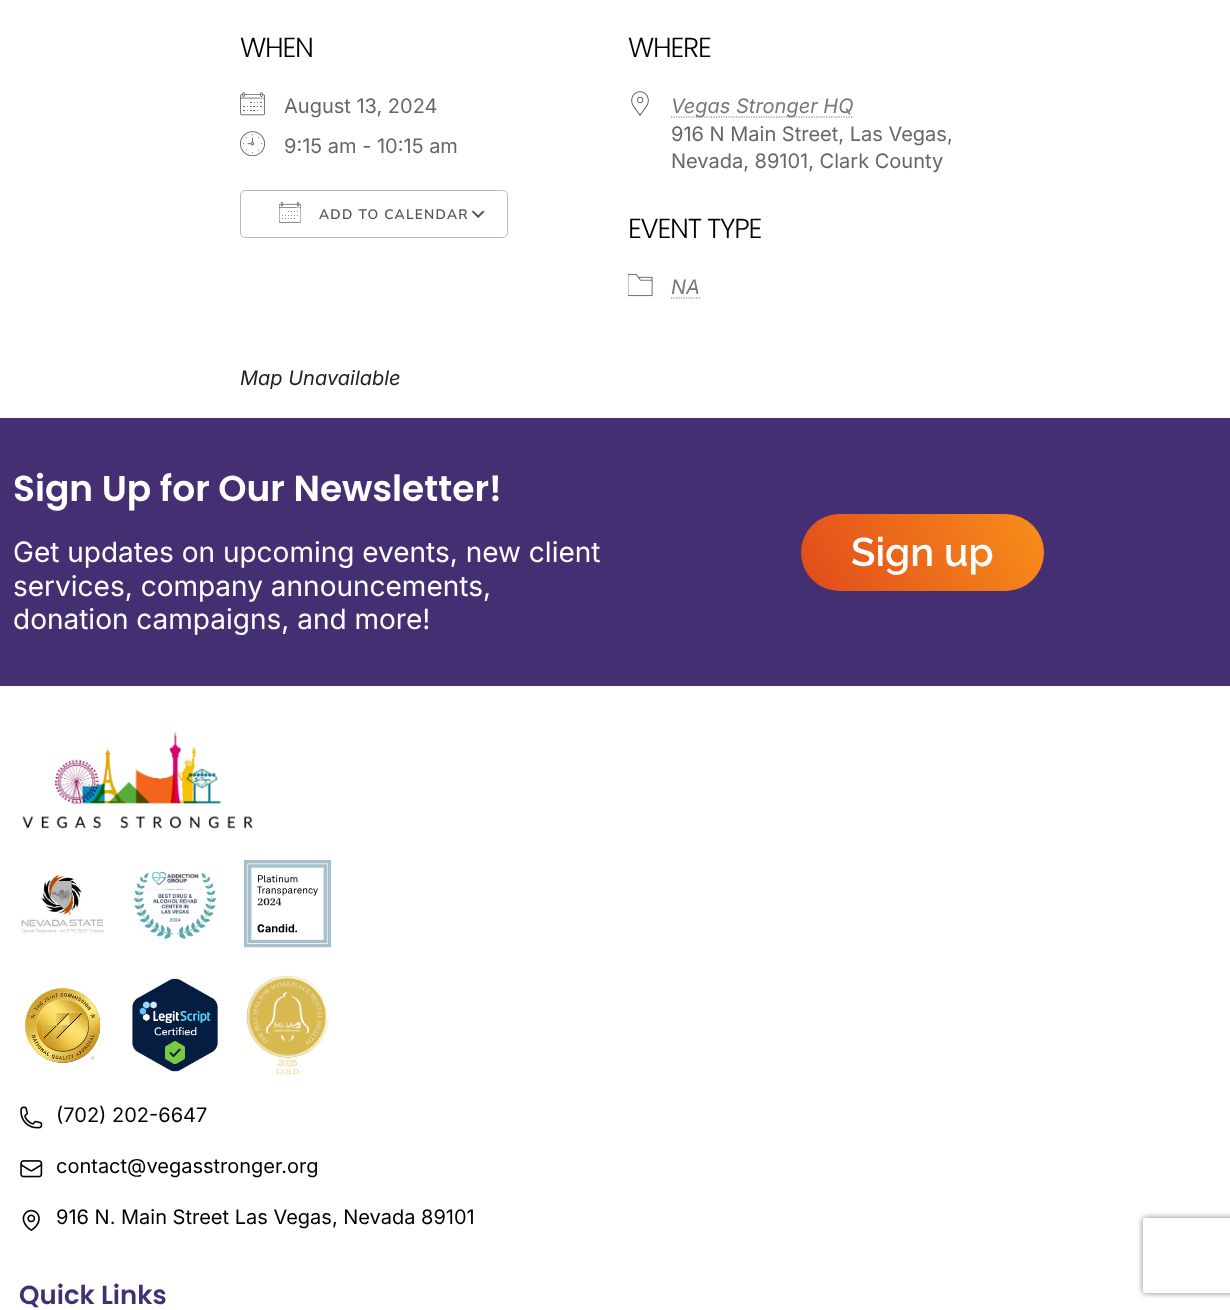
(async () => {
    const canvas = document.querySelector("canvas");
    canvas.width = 1230;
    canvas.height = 1310;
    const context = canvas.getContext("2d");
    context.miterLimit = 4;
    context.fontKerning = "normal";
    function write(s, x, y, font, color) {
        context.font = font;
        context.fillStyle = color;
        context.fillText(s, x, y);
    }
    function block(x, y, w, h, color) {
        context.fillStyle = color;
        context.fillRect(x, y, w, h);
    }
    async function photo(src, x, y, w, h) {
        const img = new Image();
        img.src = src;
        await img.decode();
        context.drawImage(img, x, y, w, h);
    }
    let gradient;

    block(0, 0, 1230, 1310, "rgb(255, 255, 255)");
    context.letterSpacing = "-1.25px";
    write("WHEN", 240, 57, "300 27.5px Poppins", "rgb(0, 0, 0)");
    await photo("media/1.png", 240, 92, 25, 24);
    context.letterSpacing = "0px";
    write("August 13, 2024", 284, 113, "20px Inter", "rgb(102, 102, 102)");
    await photo("media/2.png", 240, 131, 25, 25);
    write("9:15 am - 10:15 am", 284, 153, "20px Inter", "rgb(102, 102, 102)");
    await photo("media/3.png", 471, 210, 14, 8);
    context.beginPath();
    context.roundRect(240.5, 190.5, 267, 47, 4.5);
    context.strokeStyle = "rgb(186, 186, 186)";
    context.stroke();
    await photo("media/4.png", 279, 202, 22, 21);
    context.letterSpacing = "1.25px";
    write("ADD TO CALENDAR", 319, 219, "600 13.75px Nunito Sans", "rgb(84, 84, 84)");
    context.letterSpacing = "-1.25px";
    write("WHERE", 628, 57, "300 27.5px Poppins", "rgb(0, 0, 0)");
    await photo("media/5.png", 631, 91, 18, 25);
    context.beginPath();
    context.moveTo(671, 117);
    context.lineTo(854, 117);
    context.strokeStyle = "rgb(120, 120, 120)";
    context.lineWidth = 1.2;
    context.setLineDash([1.25, 1.25]);
    context.stroke();
    context.letterSpacing = "0px";
    write("Vegas Stronger HQ", 671, 113, "italic 20px Inter", "rgb(120, 120, 120)");
    write("916 N Main Street, Las Vegas,", 671, 141, "20px Inter", "rgb(102, 102, 102)");
    write("Nevada, 89101, Clark County", 671, 168, "20px Inter", "rgb(102, 102, 102)");
    context.letterSpacing = "-1.25px";
    write("EVENT TYPE", 628, 238, "300 27.5px Poppins", "rgb(0, 0, 0)");
    await photo("media/6.png", 628, 273, 25, 24);
    context.letterSpacing = "0px";
    write("NA", 671, 294, "italic 20px Inter", "rgb(120, 120, 120)");
    context.beginPath();
    context.moveTo(671, 298);
    context.lineTo(700, 298);
    context.stroke();
    write("Map Unavailable", 240, 385, "italic 20px Inter", "rgb(33, 33, 33)");
    block(0, 418, 1230, 268, "rgb(69, 47, 115)");
    write("Sign Up for Our Newsletter!", 13, 501, "600 36px Poppins", "rgb(255, 255, 255)");
    write("Get updates on upcoming events, new client", 13, 562, "28px Inter", "rgb(255, 255, 255)");
    write("services, company announcements,", 13, 596, "28px Inter", "rgb(255, 255, 255)");
    write("donation campaigns, and more!", 13, 629, "28px Inter", "rgb(255, 255, 255)");
    gradient = context.createLinearGradient(815, 615, 1030, 490);
    gradient.addColorStop(0, "rgb(225, 74, 28)");
    gradient.addColorStop(1, "rgb(248, 143, 26)");
    context.fillStyle = gradient;
    context.beginPath();
    context.roundRect(801, 514, 243, 77, 38.5);
    context.fill();
    write("Sign up", 851, 566, "600 40px Raleway", "rgb(255, 255, 255)");
    await photo("media/7.png", 22, 731, 231, 98);
    await photo("media/8.png", 21, 874, 83, 60);
    await photo("media/9.png", 133, 871, 84, 68);
    await photo("media/10.png", 244, 860, 87, 88);
    await photo("media/11.png", 25, 988, 76, 75);
    await photo("media/12.png", 132, 978, 86, 94);
    await photo("media/13.png", 246, 975, 83, 100);
    await photo("media/14.png", 20, 1106, 23, 23);
    write("(702) 202-6647", 56, 1122, "20px Inter", "rgb(0, 0, 0)");
    await photo("media/15.png", 20, 1160, 23, 18);
    write("contact@vegasstronger.org", 56, 1173, "20px Inter", "rgb(0, 0, 0)");
    await photo("media/16.png", 22, 1209, 18, 22);
    write("916 N. Main Street Las Vegas, Nevada 89101", 56, 1224, "20px Inter", "rgb(0, 0, 0)");
    write("Quick Links", 19, 1304, "600 26px Poppins", "rgb(69, 47, 115)");
    context.save();
    context.beginPath();
    context.moveTo(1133, 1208);
    context.lineTo(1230, 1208);
    context.lineTo(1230, 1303);
    context.lineTo(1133, 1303);
    context.closePath();
    context.moveTo(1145.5, 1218);
    context.lineTo(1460.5, 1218);
    context.bezierCurveTo(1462, 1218, 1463, 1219, 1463, 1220.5);
    context.lineTo(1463, 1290.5);
    context.bezierCurveTo(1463, 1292, 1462, 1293, 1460.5, 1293);
    context.lineTo(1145.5, 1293);
    context.bezierCurveTo(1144, 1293, 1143, 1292, 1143, 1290.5);
    context.lineTo(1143, 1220.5);
    context.bezierCurveTo(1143, 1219, 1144, 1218, 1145.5, 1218);
    context.closePath();
    context.clip("evenodd");
    context.fillStyle = "rgb(128, 128, 128)";
    context.filter = "blur(3px)";
    context.beginPath();
    context.roundRect(1143, 1218, 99, 75, 2.5);
    context.fill();
    context.filter = "none";
    context.restore();
})();
